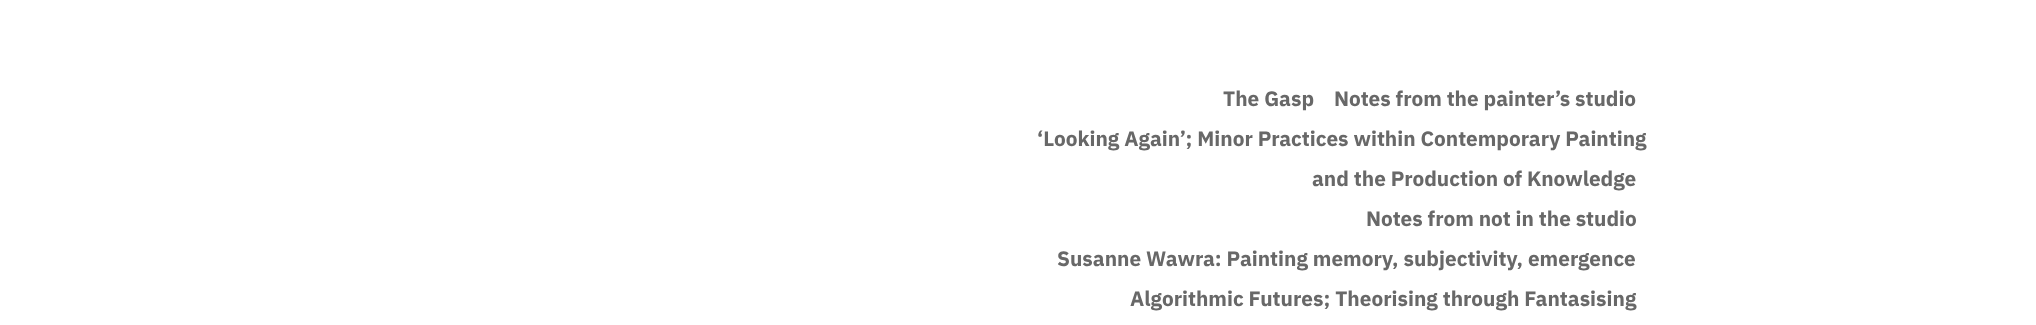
(async () => {
    const canvas = document.querySelector("canvas");
    canvas.width = 2036;
    canvas.height = 325;
    const context = canvas.getContext("2d");
    context.miterLimit = 4;
    context.fontKerning = "normal";
    function write(s, x, y, font, color) {
        context.font = font;
        context.fillStyle = color;
        context.fillText(s, x, y);
    }
    function block(x, y, w, h, color) {
        context.fillStyle = color;
        context.fillRect(x, y, w, h);
    }

    block(0, 0, 2036, 325, "rgb(255, 255, 255)");
    write("The Gasp", 1223, 106, "bold 20.8px IBM Plex Sans", "rgb(104, 104, 104)");
    write("Notes from the painter’s studio", 1334, 106, "bold 20.8px IBM Plex Sans", "rgb(104, 104, 104)");
    write("‘Looking Again’; Minor Practices within Contemporary Painting", 1037, 146, "bold 20.8px IBM Plex Sans", "rgb(104, 104, 104)");
    write("and the Production of Knowledge", 1312, 186, "bold 20.8px IBM Plex Sans", "rgb(104, 104, 104)");
    write("Notes from not in the studio", 1366, 226, "bold 20.8px IBM Plex Sans", "rgb(104, 104, 104)");
    write("Susanne Wawra: Painting memory, subjectivity, emergence", 1057, 266, "bold 20.8px IBM Plex Sans", "rgb(104, 104, 104)");
    write("Algorithmic Futures; Theorising through Fantasising", 1130, 306, "bold 20.8px IBM Plex Sans", "rgb(104, 104, 104)");
})();
